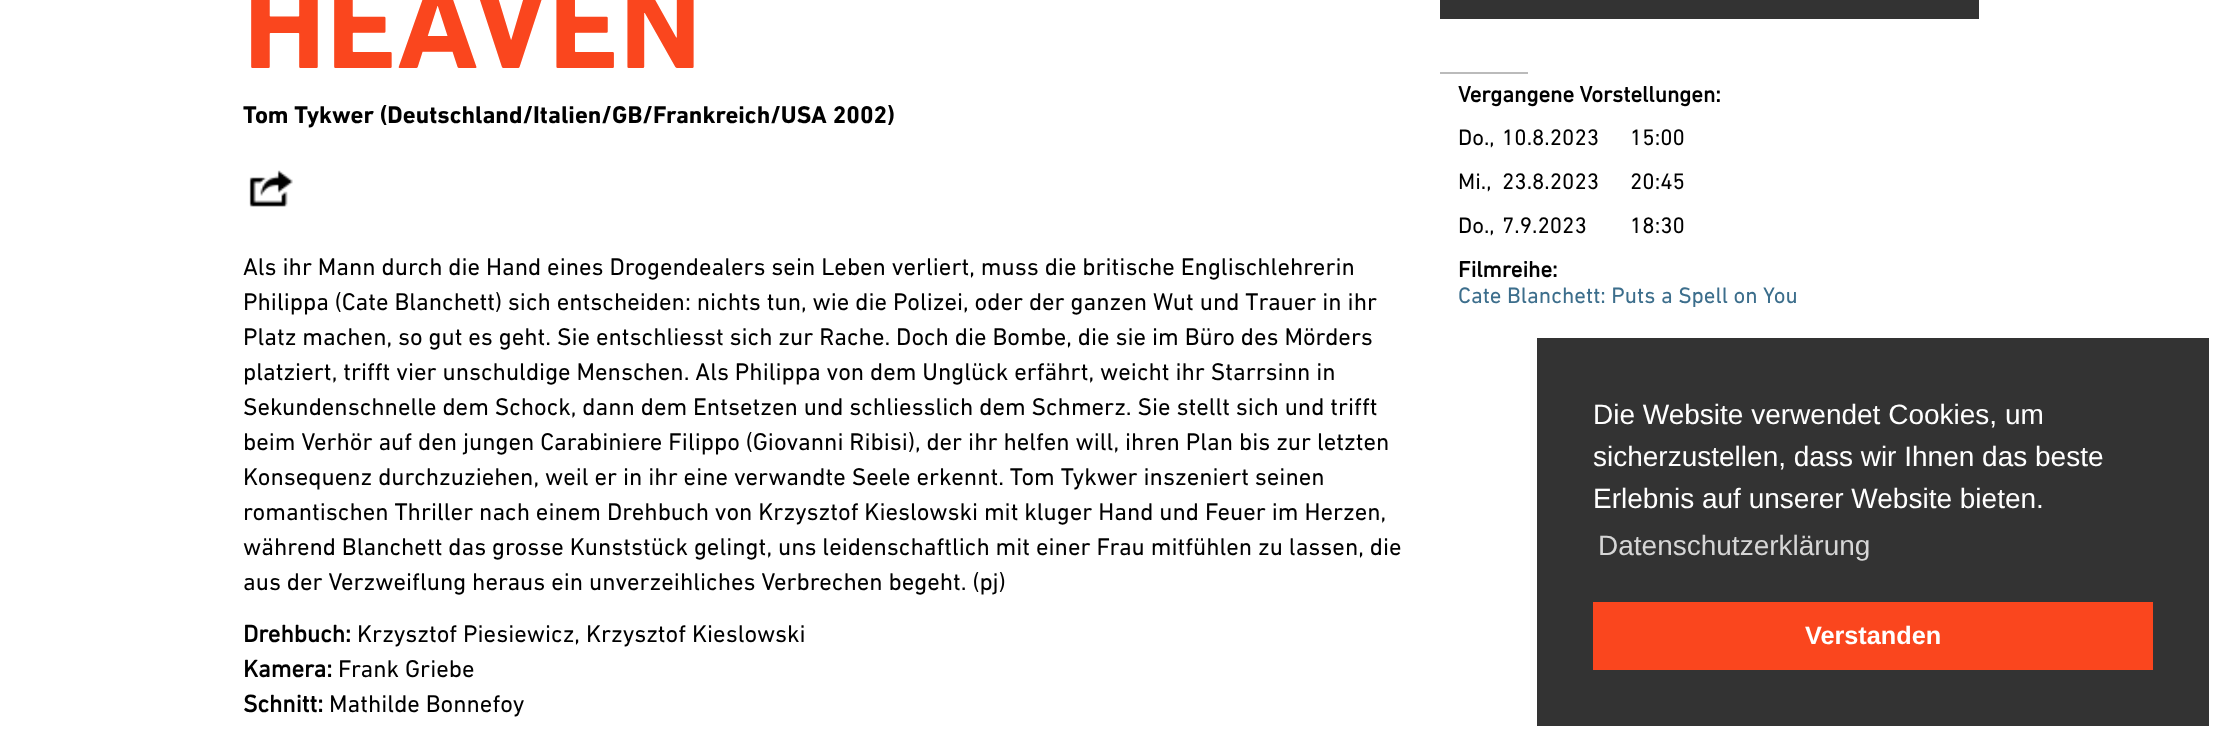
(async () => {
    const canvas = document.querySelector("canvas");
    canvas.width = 2236;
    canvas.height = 753;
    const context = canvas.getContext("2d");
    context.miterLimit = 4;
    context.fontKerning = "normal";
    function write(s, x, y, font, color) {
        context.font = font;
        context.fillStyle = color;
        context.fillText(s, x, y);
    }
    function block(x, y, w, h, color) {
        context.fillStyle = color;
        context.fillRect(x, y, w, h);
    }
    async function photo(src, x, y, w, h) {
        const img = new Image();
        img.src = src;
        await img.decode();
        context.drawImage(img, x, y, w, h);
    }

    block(0, 0, 2236, 753, "rgb(255, 255, 255)");
    write("HEAVEN", 243, 68, "bold 126px DIN Next", "rgb(250, 70, 30)");
    write("Tom Tykwer (Deutschland/Italien/GB/Frankreich/USA 2002)", 243, 123, "bold 24.5px DIN Next", "rgb(0, 0, 0)");
    await photo("media/1.png", 249, 170, 44, 37);
    write("Als ihr Mann durch die Hand eines Drogendealers sein Leben verliert, muss die britische Englischlehrerin", 243, 275, "24.5px Din Next", "rgb(0, 0, 0)");
    write("Philippa (Cate Blanchett) sich entscheiden: nichts tun, wie die Polizei, oder der ganzen Wut und Trauer in ihr", 243, 310, "24.5px Din Next", "rgb(0, 0, 0)");
    write("Platz machen, so gut es geht. Sie entschliesst sich zur Rache. Doch die Bombe, die sie im Büro des Mörders", 243, 345, "24.5px Din Next", "rgb(0, 0, 0)");
    write("platziert, trifft vier unschuldige Menschen. Als Philippa von dem Unglück erfährt, weicht ihr Starrsinn in", 243, 380, "24.5px Din Next", "rgb(0, 0, 0)");
    write("Sekundenschnelle dem Schock, dann dem Entsetzen und schliesslich dem Schmerz. Sie stellt sich und trifft", 243, 415, "24.5px Din Next", "rgb(0, 0, 0)");
    write("beim Verhör auf den jungen Carabiniere Filippo (Giovanni Ribisi), der ihr helfen will, ihren Plan bis zur letzten", 243, 450, "24.5px Din Next", "rgb(0, 0, 0)");
    write("Konsequenz durchzuziehen, weil er in ihr eine verwandte Seele erkennt. Tom Tykwer inszeniert seinen", 243, 485, "24.5px Din Next", "rgb(0, 0, 0)");
    write("romantischen Thriller nach einem Drehbuch von Krzysztof Kieslowski mit kluger Hand und Feuer im Herzen,", 243, 520, "24.5px Din Next", "rgb(0, 0, 0)");
    write("während Blanchett das grosse Kunststück gelingt, uns leidenschaftlich mit einer Frau mitfühlen zu lassen, die", 243, 555, "24.5px Din Next", "rgb(0, 0, 0)");
    write("aus der Verzweiflung heraus ein unverzeihliches Verbrechen begeht. (pj)", 243, 590, "24.5px Din Next", "rgb(0, 0, 0)");
    write("Drehbuch:", 243, 642, "bold 24.5px 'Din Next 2'", "rgb(0, 0, 0)");
    write("Krzysztof Piesiewicz, Krzysztof Kieslowski", 357, 642, "24.5px Din Next", "rgb(0, 0, 0)");
    write("Kamera:", 243, 677, "bold 24.5px 'Din Next 2'", "rgb(0, 0, 0)");
    write("Frank Griebe", 338, 677, "24.5px Din Next", "rgb(0, 0, 0)");
    write("Schnitt:", 243, 712, "bold 24.5px 'Din Next 2'", "rgb(0, 0, 0)");
    write("Mathilde Bonnefoy", 329, 712, "24.5px Din Next", "rgb(0, 0, 0)");
    block(1440, 0, 539, 19, "rgb(51, 51, 51)");
    block(1440, 72, 88, 2, "rgb(187, 187, 187)");
    write("Vergangene Vorstellungen:", 1458, 102, "bold 22.75px 'Din Next 2'", "rgb(0, 0, 0)");
    write("Do.,", 1458, 145, "22.75px Din Next", "rgb(0, 0, 0)");
    write("10.8.2023", 1502, 145, "22.75px Din Next", "rgb(0, 0, 0)");
    write("15:00", 1630, 145, "22.75px Din Next", "rgb(0, 0, 0)");
    write("Mi.,", 1458, 189, "22.75px Din Next", "rgb(0, 0, 0)");
    write("23.8.2023", 1502, 189, "22.75px Din Next", "rgb(0, 0, 0)");
    write("20:45", 1630, 189, "22.75px Din Next", "rgb(0, 0, 0)");
    write("Do.,", 1458, 233, "22.75px Din Next", "rgb(0, 0, 0)");
    write("7.9.2023", 1502, 233, "22.75px Din Next", "rgb(0, 0, 0)");
    write("18:30", 1630, 233, "22.75px Din Next", "rgb(0, 0, 0)");
    write("Filmreihe:", 1458, 277, "bold 22.75px 'Din Next 2'", "rgb(0, 0, 0)");
    write("Cate Blanchett: Puts a Spell on You", 1458, 303, "22.75px Din Next", "rgb(60, 110, 140)");
    block(1537, 338, 672, 388, "rgb(51, 51, 51)");
    write("Die Website verwendet Cookies, um", 1593, 424, "28px Liberation Sans", "rgb(255, 255, 255)");
    write("sicherzustellen, dass wir Ihnen das beste", 1593, 466, "28px Liberation Sans", "rgb(255, 255, 255)");
    write("Erlebnis auf unserer Website bieten.", 1593, 508, "28px Liberation Sans", "rgb(255, 255, 255)");
    write("Datenschutzerklärung", 1598, 555, "28px Liberation Sans", "rgb(214, 214, 214)");
    block(1593, 602, 560, 68, "rgb(250, 70, 30)");
    write("Verstanden", 1805, 644, "bold 25.25px Liberation Sans", "rgb(255, 255, 255)");
})();
